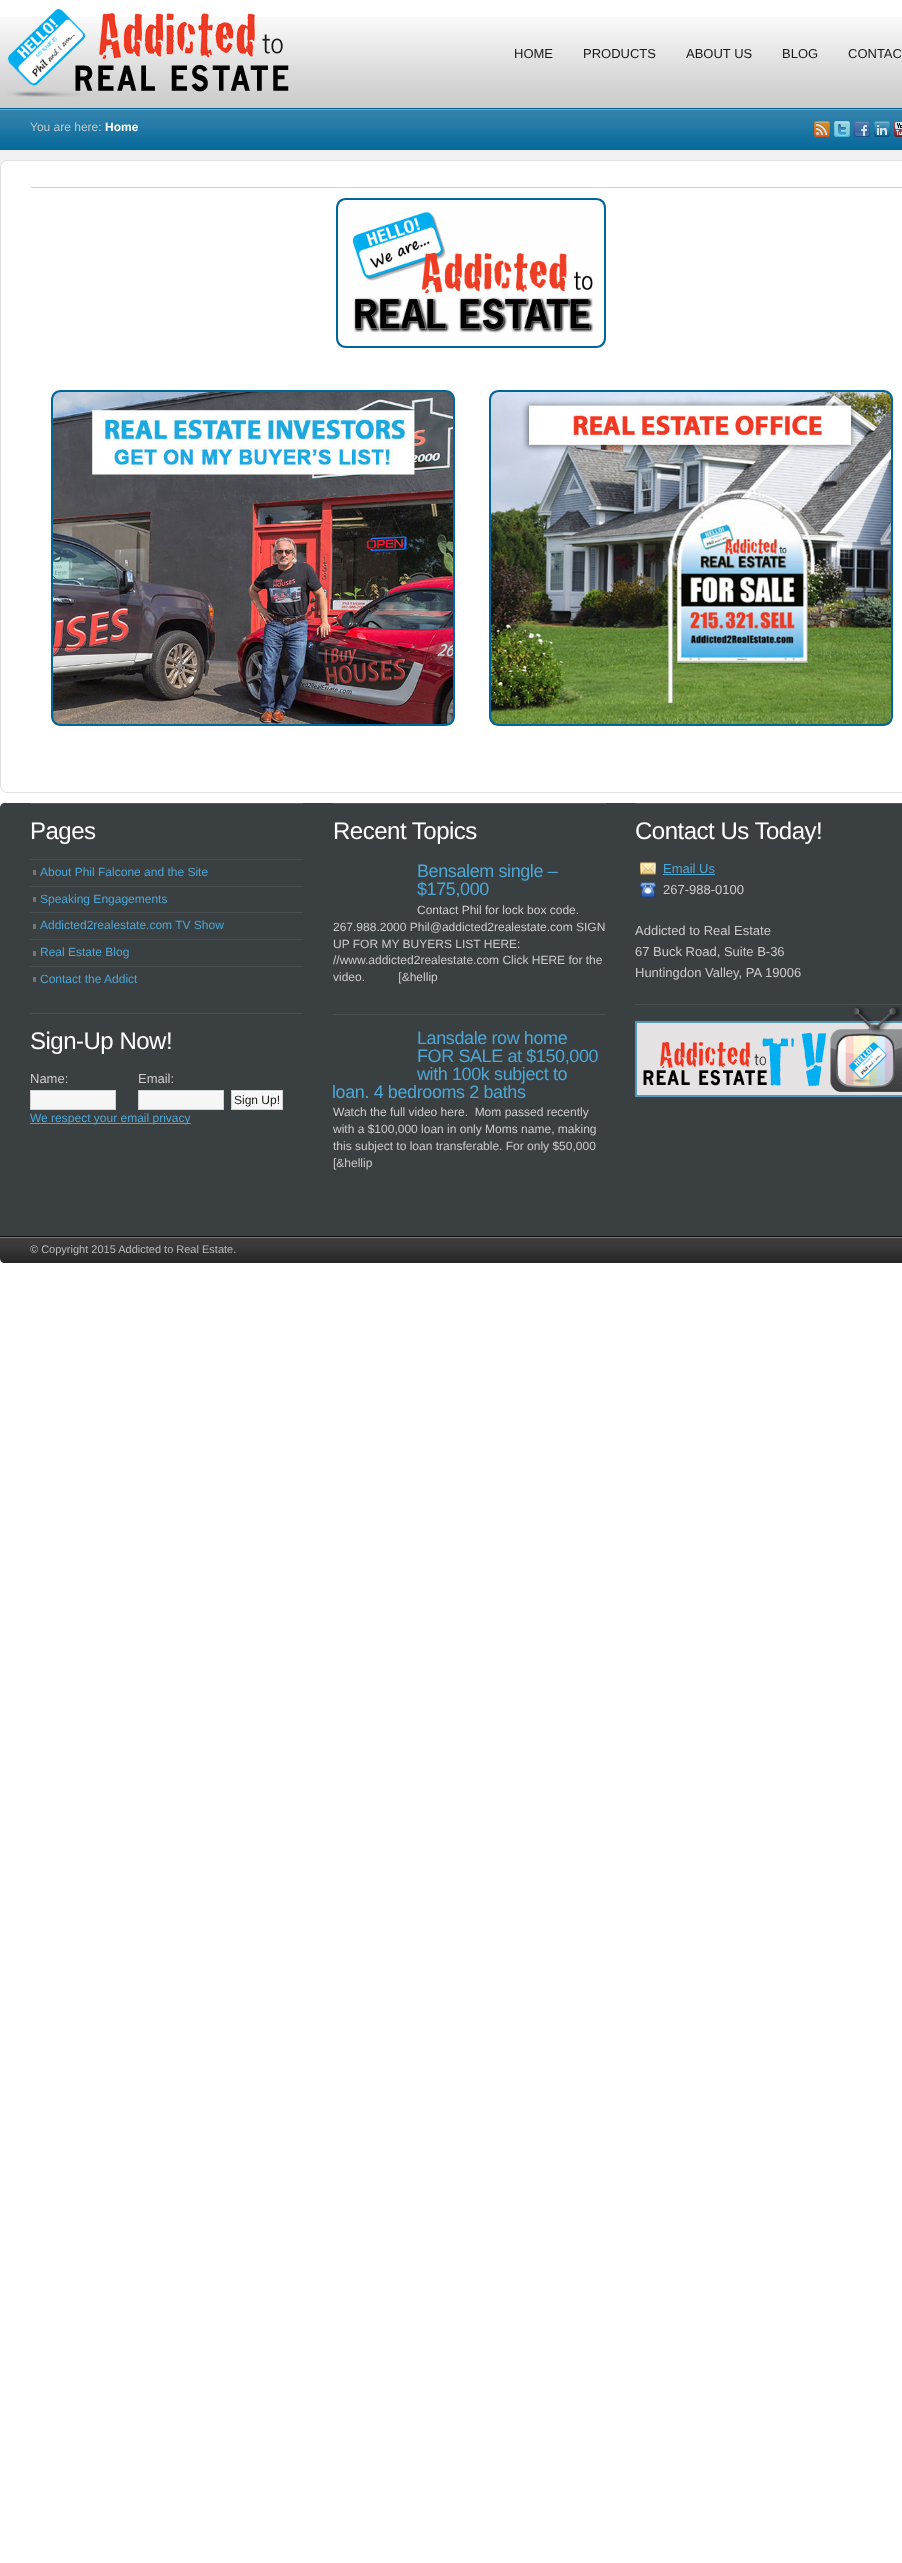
(async () => {
    const canvas = document.querySelector("canvas");
    canvas.width = 902;
    canvas.height = 2563;
    const context = canvas.getContext("2d");
    context.miterLimit = 4;
    context.fontKerning = "normal";
    function write(s, x, y, font, color) {
        context.font = font;
        context.fillStyle = color;
        context.fillText(s, x, y);
    }
    function block(x, y, w, h, color) {
        context.fillStyle = color;
        context.fillRect(x, y, w, h);
    }
    function card(x, y, w, h, r, color) {
        context.fillStyle = color;
        context.beginPath();
        context.roundRect(x, y, w, h, r);
        context.fill();
    }
    async function photo(src, x, y, w, h) {
        const img = new Image();
        img.src = src;
        await img.decode();
        context.drawImage(img, x, y, w, h);
    }

    block(0, 0, 902, 2563, "rgb(255, 255, 255)");
    await photo("media/1.png", 0, 17, 902, 91);
    await photo("media/2.png", 7, 8, 282, 89);
    write("HOME", 514, 58, "13px Liberation Sans", "rgb(25, 25, 25)");
    write("PRODUCTS", 583, 58, "13px Liberation Sans", "rgb(25, 25, 25)");
    write("ABOUT US", 686, 58, "13px Liberation Sans", "rgb(25, 25, 25)");
    write("BLOG", 782, 58, "13px Liberation Sans", "rgb(25, 25, 25)");
    write("CONTAC", 848, 58, "13px Liberation Sans", "rgb(25, 25, 25)");
    block(0, 108, 902, 42, "rgb(0, 102, 153)");
    await photo("media/3.png", 0, 109, 902, 41);
    write("You are here:", 30, 131, "12px Liberation Sans", "rgb(194, 198, 199)");
    write("Home", 105, 131, "bold 12px Liberation Sans", "rgb(255, 255, 255)");
    await photo("media/4.png", 814, 121, 16, 16);
    await photo("media/5.png", 834, 121, 16, 16);
    await photo("media/6.png", 854, 121, 16, 16);
    await photo("media/7.png", 874, 121, 16, 16);
    await photo("media/8.png", 894, 121, 8, 16);
    await photo("media/9.png", 0, 150, 902, 17);
    context.beginPath();
    context.roundRect(0.5, 160.5, 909, 632, 6.5);
    context.fill();
    context.strokeStyle = "rgb(224, 224, 224)";
    context.stroke();
    context.save();
    context.beginPath();
    context.roundRect(1, 161, 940, 631, 6);
    context.clip();
    card(1, 161, 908, 631, 7, "rgb(255, 255, 255)");
    context.restore();
    block(31, 187, 871, 1, "rgb(209, 209, 209)");
    context.fillStyle = "rgb(0, 102, 153)";
    context.beginPath();
    context.moveTo(346, 198);
    context.lineTo(596, 198);
    context.bezierCurveTo(602, 198, 606, 202, 606, 208);
    context.lineTo(606, 338);
    context.bezierCurveTo(606, 344, 602, 348, 596, 348);
    context.lineTo(346, 348);
    context.bezierCurveTo(340, 348, 336, 344, 336, 338);
    context.lineTo(336, 208);
    context.bezierCurveTo(336, 202, 340, 198, 346, 198);
    context.closePath();
    context.fill();
    await photo("media/10.png", 338, 200, 266, 146);
    context.beginPath();
    context.moveTo(61, 390);
    context.lineTo(445, 390);
    context.bezierCurveTo(451, 390, 455, 394, 455, 400);
    context.lineTo(455, 716);
    context.bezierCurveTo(455, 722, 451, 726, 445, 726);
    context.lineTo(61, 726);
    context.bezierCurveTo(55, 726, 51, 722, 51, 716);
    context.lineTo(51, 400);
    context.bezierCurveTo(51, 394, 55, 390, 61, 390);
    context.closePath();
    context.fill();
    await photo("media/11.png", 53, 392, 400, 332);
    context.beginPath();
    context.moveTo(499, 390);
    context.lineTo(883, 390);
    context.bezierCurveTo(889, 390, 893, 394, 893, 400);
    context.lineTo(893, 716);
    context.bezierCurveTo(893, 722, 889, 726, 883, 726);
    context.lineTo(499, 726);
    context.bezierCurveTo(493, 726, 489, 722, 489, 716);
    context.lineTo(489, 400);
    context.bezierCurveTo(489, 394, 493, 390, 499, 390);
    context.closePath();
    context.fill();
    await photo("media/12.png", 491, 392, 400, 332);
    context.fillStyle = "rgb(58, 63, 66)";
    context.beginPath();
    context.moveTo(5, 803);
    context.lineTo(902, 803);
    context.bezierCurveTo(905, 803, 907, 805, 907, 808);
    context.lineTo(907, 1236);
    context.lineTo(0, 1236);
    context.lineTo(0, 808);
    context.bezierCurveTo(0, 805, 2, 803, 5, 803);
    context.closePath();
    context.fill();
    block(30, 803, 273, 1, "rgb(87, 90, 92)");
    context.letterSpacing = "-0.5px";
    write("Pages", 30, 839, "24px Liberation Sans", "rgb(255, 255, 255)");
    block(30, 859, 273, 1, "rgb(75, 79, 81)");
    block(33, 870, 3, 5, "rgb(115, 117, 118)");
    context.letterSpacing = "0px";
    write("About Phil Falcone and the Site", 40, 876, "12px Liberation Sans", "rgb(77, 167, 213)");
    block(30, 886, 273, 1, "rgb(75, 79, 81)");
    block(33, 897, 3, 5, "rgb(115, 117, 118)");
    write("Speaking Engagements", 40, 903, "12px Liberation Sans", "rgb(77, 167, 213)");
    block(30, 912, 273, 1, "rgb(75, 79, 81)");
    block(33, 924, 3, 5, "rgb(115, 117, 118)");
    write("Addicted2realestate.com TV Show", 40, 929, "12px Liberation Sans", "rgb(77, 167, 213)");
    block(30, 939, 273, 1, "rgb(75, 79, 81)");
    block(33, 951, 3, 5, "rgb(115, 117, 118)");
    write("Real Estate Blog", 40, 956, "12px Liberation Sans", "rgb(77, 167, 213)");
    block(30, 966, 273, 1, "rgb(75, 79, 81)");
    block(33, 977, 3, 5, "rgb(115, 117, 118)");
    write("Contact the Addict", 40, 983, "12px Liberation Sans", "rgb(77, 167, 213)");
    block(30, 1013, 273, 1, "rgb(75, 79, 81)");
    context.letterSpacing = "-0.5px";
    write("Sign-Up Now!", 30, 1049, "24px Liberation Sans", "rgb(255, 255, 255)");
    context.letterSpacing = "0px";
    write("Name:", 30, 1083, "13px Liberation Sans", "rgb(204, 204, 204)");
    block(31, 1091, 84, 1, "rgb(255, 255, 255)");
    block(31, 1092, 84, 17, "rgb(246, 246, 246)");
    context.strokeStyle = "rgb(209, 209, 209)";
    context.strokeRect(30.5, 1090.5, 85, 19);
    write("Email:", 138, 1083, "13px Liberation Sans", "rgb(204, 204, 204)");
    block(139, 1091, 84, 1, "rgb(255, 255, 255)");
    block(139, 1092, 84, 17, "rgb(246, 246, 246)");
    context.strokeRect(138.5, 1090.5, 85, 19);
    block(232, 1091, 50, 1, "rgb(255, 255, 255)");
    block(232, 1092, 50, 17, "rgb(246, 246, 246)");
    context.strokeRect(231.5, 1090.5, 51, 19);
    write("Sign Up!", 234, 1104, "12px Liberation Sans", "rgb(25, 25, 25)");
    block(30, 1123, 161, 1, "rgb(77, 167, 213)");
    write("We respect your email privacy", 30, 1122, "12px Liberation Sans", "rgb(77, 167, 213)");
    block(333, 803, 273, 1, "rgb(87, 90, 92)");
    context.letterSpacing = "-0.5px";
    write("Recent Topics", 333, 839, "24px Liberation Sans", "rgb(255, 255, 255)");
    block(333, 1014, 273, 1, "rgb(75, 79, 81)");
    context.letterSpacing = "-0.4px";
    write("Bensalem single –", 417, 877, "18px Liberation Sans", "rgb(77, 167, 213)");
    write("$175,000", 417, 895, "18px Liberation Sans", "rgb(77, 167, 213)");
    context.letterSpacing = "0px";
    write("Contact Phil for lock box code.", 417, 914, "12px Liberation Sans", "rgb(204, 204, 204)");
    write("267.988.2000 Phil@addicted2realestate.com SIGN", 333, 931, "12px Liberation Sans", "rgb(204, 204, 204)");
    write("UP FOR MY BUYERS LIST HERE:", 333, 948, "12px Liberation Sans", "rgb(204, 204, 204)");
    write("//www.addicted2realestate.com Click HERE for the", 333, 964, "12px Liberation Sans", "rgb(204, 204, 204)");
    write("video.          [&hellip", 333, 981, "12px Liberation Sans", "rgb(204, 204, 204)");
    context.letterSpacing = "-0.4px";
    write("Lansdale row home", 417, 1044, "18px Liberation Sans", "rgb(77, 167, 213)");
    write("FOR SALE at $150,000", 417, 1062, "18px Liberation Sans", "rgb(77, 167, 213)");
    write("with 100k subject to", 417, 1080, "18px Liberation Sans", "rgb(77, 167, 213)");
    write("loan. 4 bedrooms 2 baths", 332, 1098, "18px Liberation Sans", "rgb(77, 167, 213)");
    context.letterSpacing = "0px";
    write("Watch the full video here.  Mom passed recently", 333, 1116, "12px Liberation Sans", "rgb(204, 204, 204)");
    write("with a $100,000 loan in only Moms name, making", 333, 1133, "12px Liberation Sans", "rgb(204, 204, 204)");
    write("this subject to loan transferable. For only $50,000", 333, 1150, "12px Liberation Sans", "rgb(204, 204, 204)");
    write("[&hellip", 333, 1167, "12px Liberation Sans", "rgb(204, 204, 204)");
    block(635, 803, 267, 1, "rgb(87, 90, 92)");
    context.letterSpacing = "-0.5px";
    write("Contact Us Today!", 635, 839, "24px Liberation Sans", "rgb(255, 255, 255)");
    await photo("media/13.png", 640, 862, 16, 13);
    context.letterSpacing = "0px";
    write("Email Us", 663, 873, "13px Liberation Sans", "rgb(77, 167, 213)");
    block(663, 874, 52, 1, "rgb(77, 167, 213)");
    await photo("media/14.png", 640, 882, 16, 15);
    write("267-988-0100", 663, 894, "13px Liberation Sans", "rgb(204, 204, 204)");
    write("Addicted to Real Estate", 635, 935, "13px Liberation Sans", "rgb(204, 204, 204)");
    write("67 Buck Road, Suite B-36", 635, 956, "13px Liberation Sans", "rgb(204, 204, 204)");
    write("Huntingdon Valley, PA 19006", 635, 977, "13px Liberation Sans", "rgb(204, 204, 204)");
    block(635, 1004, 267, 1, "rgb(75, 79, 81)");
    await photo("media/15.png", 635, 1007, 267, 90);
    context.fillStyle = "rgb(17, 17, 17)";
    context.beginPath();
    context.moveTo(0, 1236);
    context.lineTo(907, 1236);
    context.lineTo(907, 1258);
    context.bezierCurveTo(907, 1261, 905, 1263, 902, 1263);
    context.lineTo(5, 1263);
    context.bezierCurveTo(2, 1263, 0, 1261, 0, 1258);
    context.closePath();
    context.fill();
    await photo("media/16.png", 0, 1237, 902, 26);
    write("© Copyright 2015 Addicted to Real Estate.", 30, 1253, "11px Liberation Sans", "rgb(187, 187, 187)");
})();
